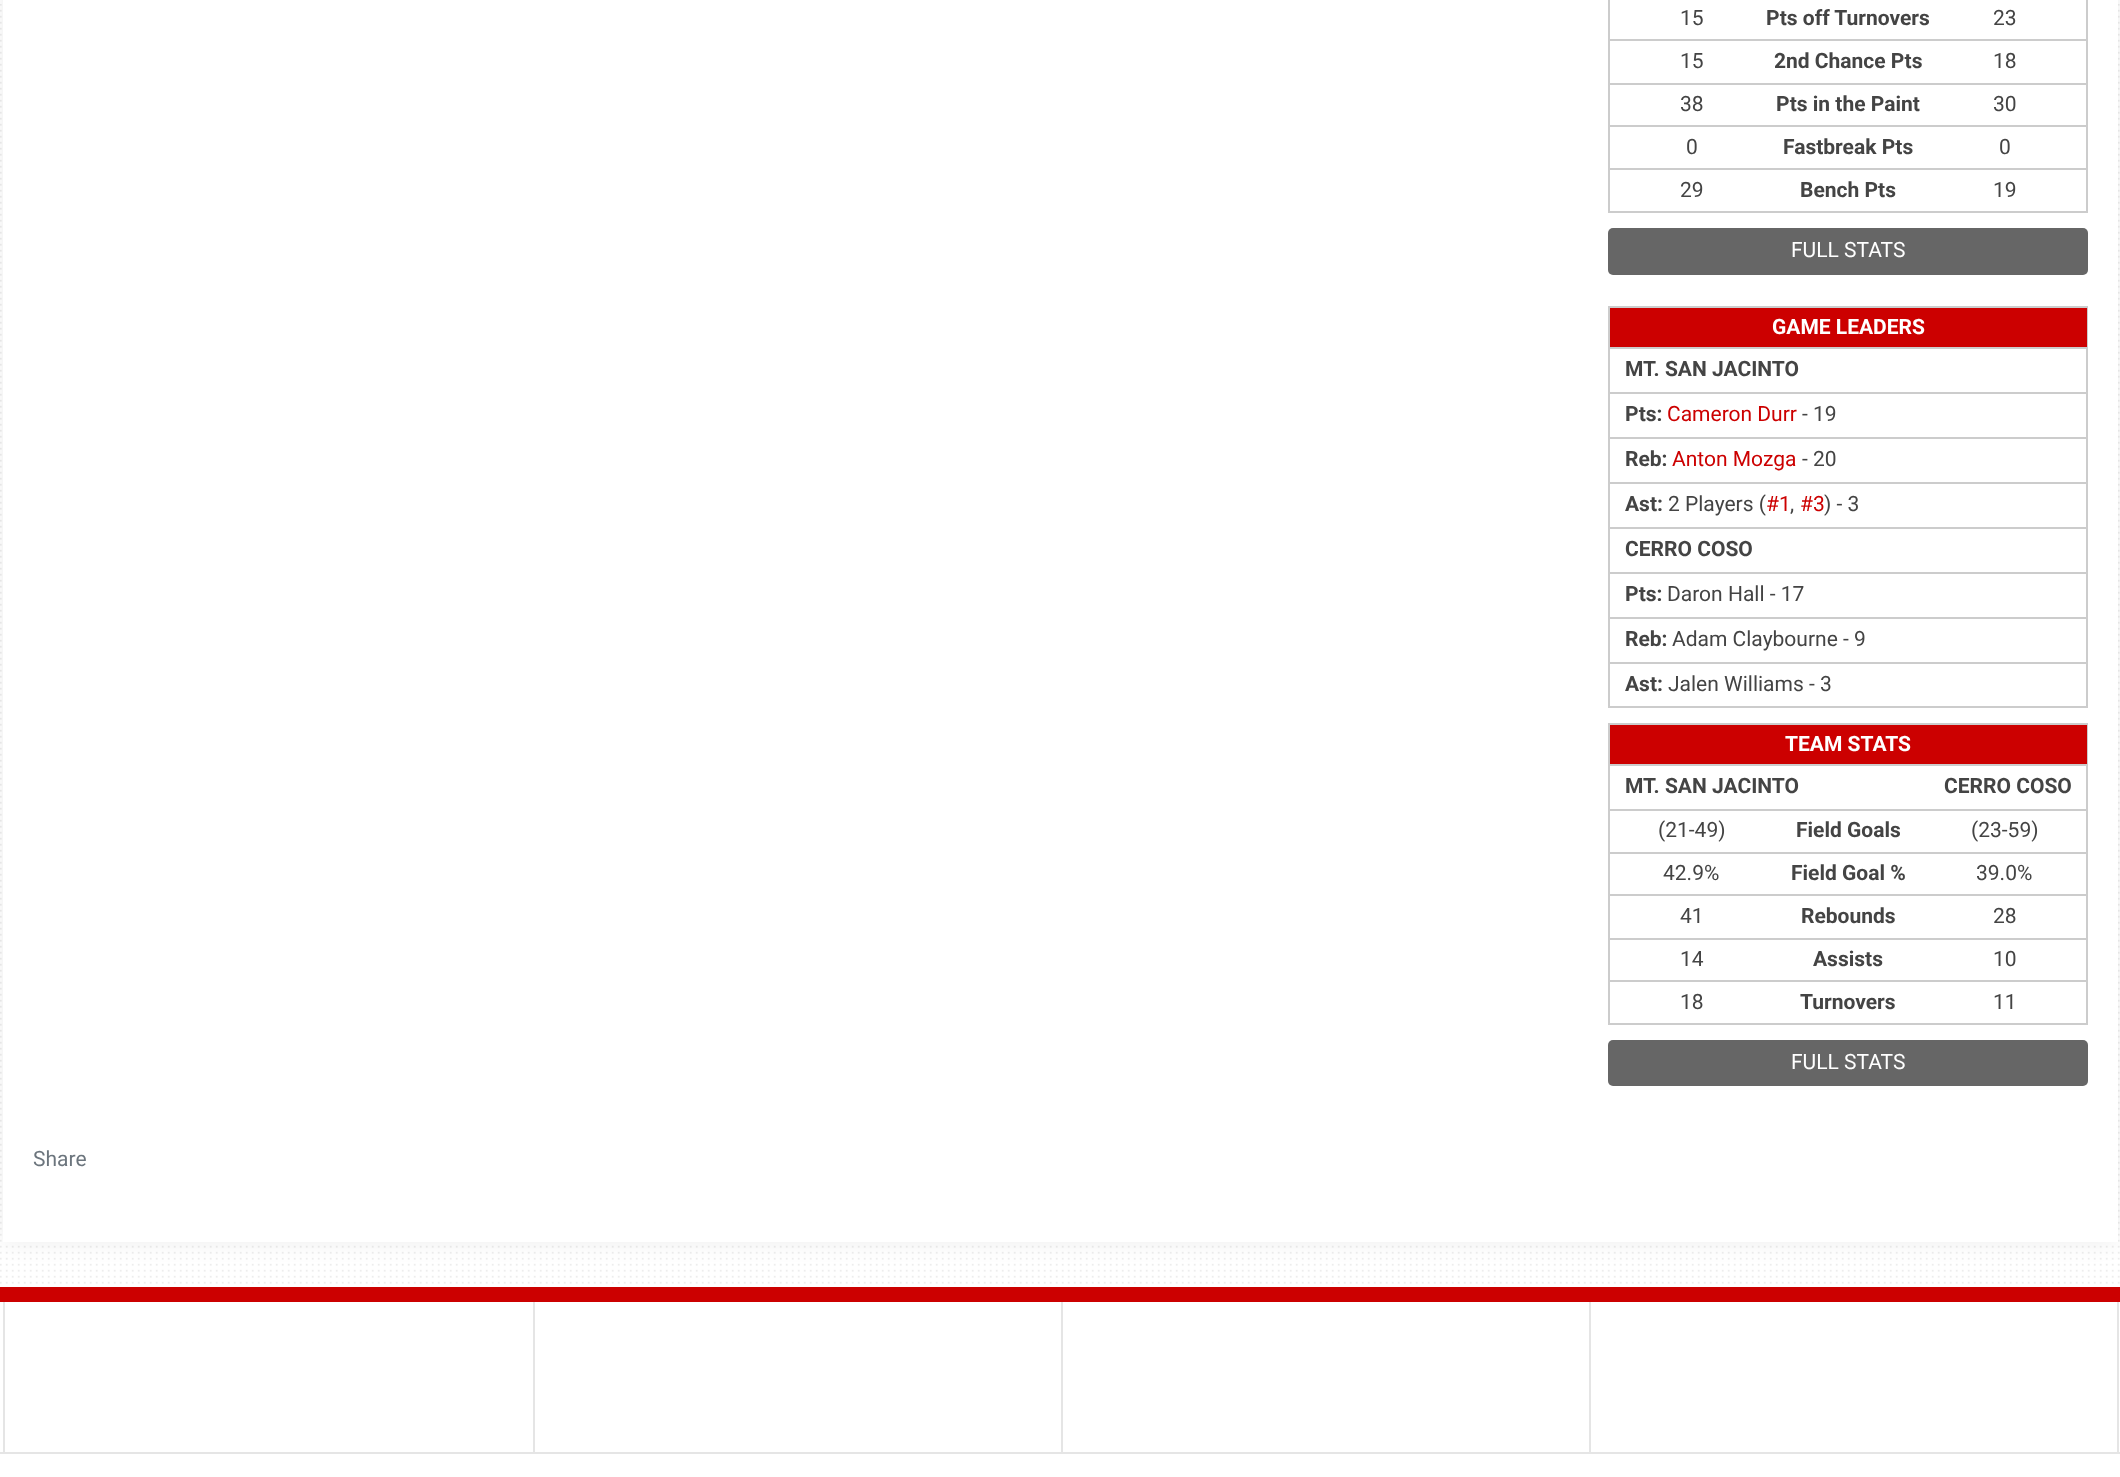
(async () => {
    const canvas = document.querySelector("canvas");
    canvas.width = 2120;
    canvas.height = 1477;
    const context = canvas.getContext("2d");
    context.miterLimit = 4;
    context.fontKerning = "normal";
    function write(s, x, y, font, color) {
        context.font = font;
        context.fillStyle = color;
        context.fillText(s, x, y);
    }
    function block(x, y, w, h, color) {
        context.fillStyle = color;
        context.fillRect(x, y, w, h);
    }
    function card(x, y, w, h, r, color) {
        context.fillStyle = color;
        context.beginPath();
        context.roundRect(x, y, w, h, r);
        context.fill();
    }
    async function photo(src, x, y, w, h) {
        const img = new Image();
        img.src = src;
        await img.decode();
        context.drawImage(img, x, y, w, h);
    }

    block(0, 0, 2120, 1477, "rgb(255, 255, 255)");
    await photo("media/1.png", 0, 4, 2120, 1283);
    context.fillStyle = "rgba(0, 0, 0, 0.07)";
    context.filter = "blur(11px)";
    context.beginPath();
    context.rect(3, -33, 2115, 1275);
    context.fill();
    context.filter = "none";
    block(3, 0, 2115, 1242, "rgb(255, 255, 255)");
    context.strokeStyle = "rgb(204, 204, 204)";
    context.lineWidth = 2;
    context.strokeRect(1609, -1, 478, 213);
    write("15", 1680, 25, "21px Roboto", "rgb(68, 68, 68)");
    write("Pts off Turnovers", 1766, 25, "bold 21px Roboto", "rgb(68, 68, 68)");
    write("23", 1993, 25, "21px Roboto", "rgb(68, 68, 68)");
    block(1610, 39, 477, 2, "rgb(204, 204, 204)");
    write("15", 1680, 68, "21px Roboto", "rgb(68, 68, 68)");
    write("2nd Chance Pts", 1774, 68, "bold 21px Roboto", "rgb(68, 68, 68)");
    write("18", 1993, 68, "21px Roboto", "rgb(68, 68, 68)");
    block(1610, 83, 477, 2, "rgb(204, 204, 204)");
    write("38", 1680, 111, "21px Roboto", "rgb(68, 68, 68)");
    write("Pts in the Paint", 1776, 111, "bold 21px Roboto", "rgb(68, 68, 68)");
    write("30", 1993, 111, "21px Roboto", "rgb(68, 68, 68)");
    block(1610, 125, 477, 2, "rgb(204, 204, 204)");
    write("0", 1686, 154, "21px Roboto", "rgb(68, 68, 68)");
    write("Fastbreak Pts", 1783, 154, "bold 21px Roboto", "rgb(68, 68, 68)");
    write("0", 1999, 154, "21px Roboto", "rgb(68, 68, 68)");
    block(1610, 168, 477, 2, "rgb(204, 204, 204)");
    write("29", 1680, 197, "21px Roboto", "rgb(68, 68, 68)");
    write("Bench Pts", 1800, 197, "bold 21px Roboto", "rgb(68, 68, 68)");
    write("19", 1993, 197, "21px Roboto", "rgb(68, 68, 68)");
    card(1608, 228, 480, 47, 5, "rgb(102, 102, 102)");
    write("FULL STATS", 1791, 257, "21px Roboto", "rgb(255, 255, 255)");
    context.strokeRect(1609, 307, 478, 400);
    block(1610, 308, 477, 39, "rgb(204, 0, 0)");
    write("GAME LEADERS", 1772, 334, "bold 21px Roboto", "rgb(255, 255, 255)");
    block(1610, 347, 477, 2, "rgb(204, 204, 204)");
    write("MT. SAN JACINTO", 1625, 376, "bold 21px Roboto", "rgb(68, 68, 68)");
    block(1610, 392, 477, 2, "rgb(204, 204, 204)");
    write("Pts:", 1625, 421, "bold 21px Roboto", "rgb(68, 68, 68)");
    write("Cameron Durr", 1667, 421, "21px Roboto", "rgb(204, 0, 0)");
    write("- 19", 1802, 421, "21px Roboto", "rgb(68, 68, 68)");
    block(1610, 437, 477, 2, "rgb(204, 204, 204)");
    write("Reb:", 1625, 466, "bold 21px Roboto", "rgb(68, 68, 68)");
    write("Anton Mozga", 1672, 466, "21px Roboto", "rgb(204, 0, 0)");
    write("- 20", 1802, 466, "21px Roboto", "rgb(68, 68, 68)");
    block(1610, 482, 477, 2, "rgb(204, 204, 204)");
    write("Ast:", 1625, 511, "bold 21px Roboto", "rgb(68, 68, 68)");
    write("2 Players (", 1668, 511, "21px Roboto", "rgb(68, 68, 68)");
    write("#1", 1766, 511, "21px Roboto", "rgb(204, 0, 0)");
    write(",", 1790, 511, "21px Roboto", "rgb(68, 68, 68)");
    write("#3", 1800, 511, "21px Roboto", "rgb(204, 0, 0)");
    write(") - 3", 1824, 511, "21px Roboto", "rgb(68, 68, 68)");
    block(1610, 527, 477, 2, "rgb(204, 204, 204)");
    write("CERRO COSO", 1625, 556, "bold 21px Roboto", "rgb(68, 68, 68)");
    block(1610, 572, 477, 2, "rgb(204, 204, 204)");
    write("Pts:", 1625, 601, "bold 21px Roboto", "rgb(68, 68, 68)");
    write("Daron Hall - 17", 1667, 601, "21px Roboto", "rgb(68, 68, 68)");
    block(1610, 617, 477, 2, "rgb(204, 204, 204)");
    write("Reb:", 1625, 646, "bold 21px Roboto", "rgb(68, 68, 68)");
    write("Adam Claybourne - 9", 1672, 646, "21px Roboto", "rgb(68, 68, 68)");
    block(1610, 662, 477, 2, "rgb(204, 204, 204)");
    write("Ast:", 1625, 691, "bold 21px Roboto", "rgb(68, 68, 68)");
    write("Jalen Williams - 3", 1668, 691, "21px Roboto", "rgb(68, 68, 68)");
    context.strokeRect(1609, 724, 478, 300);
    block(1610, 725, 477, 39, "rgb(204, 0, 0)");
    write("TEAM STATS", 1785, 751, "bold 21px Roboto", "rgb(255, 255, 255)");
    block(1610, 764, 477, 2, "rgb(204, 204, 204)");
    write("MT. SAN JACINTO", 1625, 793, "bold 21px Roboto", "rgb(68, 68, 68)");
    write("CERRO COSO", 1944, 793, "bold 21px Roboto", "rgb(68, 68, 68)");
    block(1610, 809, 477, 2, "rgb(204, 204, 204)");
    write("(21-49)", 1658, 837, "21px Roboto", "rgb(68, 68, 68)");
    write("Field Goals", 1796, 837, "bold 21px Roboto", "rgb(68, 68, 68)");
    write("(23-59)", 1971, 837, "21px Roboto", "rgb(68, 68, 68)");
    block(1610, 852, 477, 2, "rgb(204, 204, 204)");
    write("42.9%", 1663, 880, "21px Roboto", "rgb(68, 68, 68)");
    write("Field Goal %", 1791, 880, "bold 21px Roboto", "rgb(68, 68, 68)");
    write("39.0%", 1976, 880, "21px Roboto", "rgb(68, 68, 68)");
    block(1610, 894, 477, 2, "rgb(204, 204, 204)");
    write("41", 1680, 923, "21px Roboto", "rgb(68, 68, 68)");
    write("Rebounds", 1801, 923, "bold 21px Roboto", "rgb(68, 68, 68)");
    write("28", 1993, 923, "21px Roboto", "rgb(68, 68, 68)");
    block(1610, 938, 477, 2, "rgb(204, 204, 204)");
    write("14", 1680, 966, "21px Roboto", "rgb(68, 68, 68)");
    write("Assists", 1813, 966, "bold 21px Roboto", "rgb(68, 68, 68)");
    write("10", 1993, 966, "21px Roboto", "rgb(68, 68, 68)");
    block(1610, 980, 477, 2, "rgb(204, 204, 204)");
    write("18", 1680, 1009, "21px Roboto", "rgb(68, 68, 68)");
    write("Turnovers", 1800, 1009, "bold 21px Roboto", "rgb(68, 68, 68)");
    write("11", 1993, 1009, "21px Roboto", "rgb(68, 68, 68)");
    card(1608, 1040, 480, 46, 5, "rgb(102, 102, 102)");
    write("FULL STATS", 1791, 1069, "21px Roboto", "rgb(255, 255, 255)");
    write("Share", 33, 1166, "21px Roboto", "rgb(108, 117, 125)");
    block(0, 1287, 2120, 15, "rgb(204, 0, 0)");
    block(2117, 1302, 2, 152, "rgb(229, 229, 229)");
    block(3, 1302, 2, 152, "rgb(229, 229, 229)");
    block(533, 1302, 2, 152, "rgb(229, 229, 229)");
    block(1061, 1302, 2, 152, "rgb(229, 229, 229)");
    block(1589, 1302, 2, 152, "rgb(229, 229, 229)");
    block(0, 1452, 2120, 2, "rgb(229, 229, 229)");
})();
